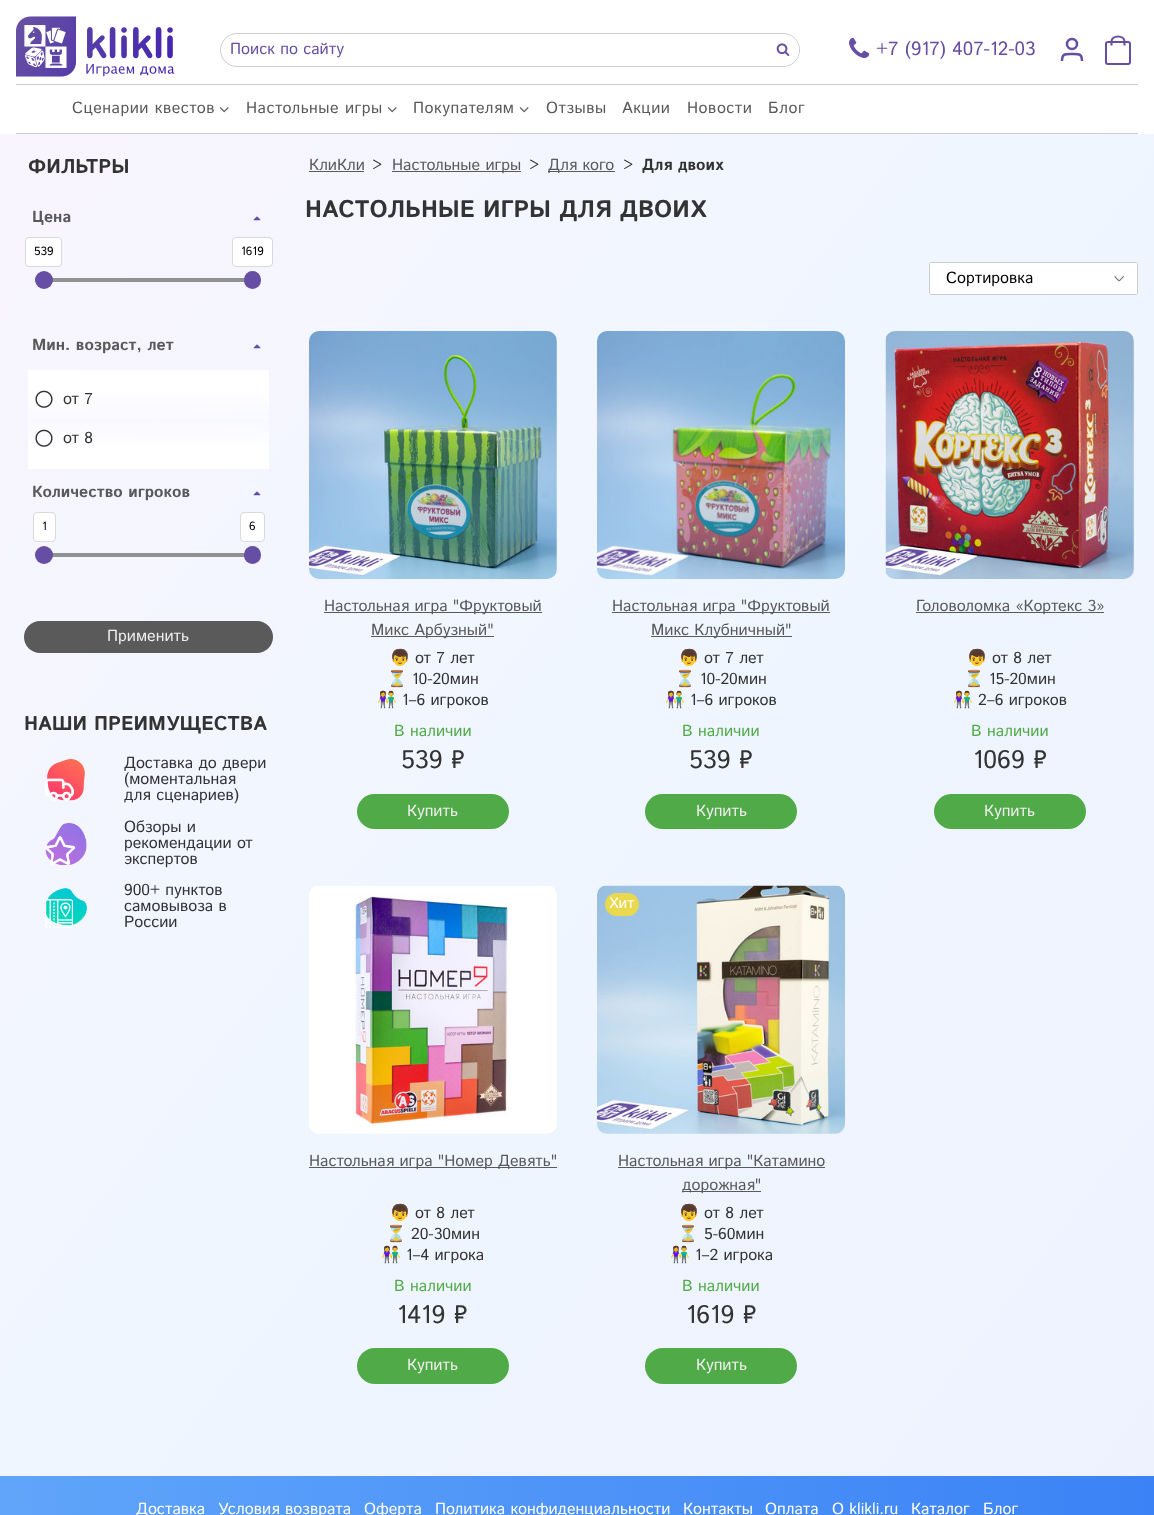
(async () => {
    const canvas = document.querySelector("canvas");
    canvas.width = 1154;
    canvas.height = 1515;
    const context = canvas.getContext("2d");
    context.miterLimit = 4;
    context.fontKerning = "normal";
    function write(s, x, y, font, color) {
        context.font = font;
        context.fillStyle = color;
        context.fillText(s, x, y);
    }
    function block(x, y, w, h, color) {
        context.fillStyle = color;
        context.fillRect(x, y, w, h);
    }
    function card(x, y, w, h, r, color) {
        context.fillStyle = color;
        context.beginPath();
        context.roundRect(x, y, w, h, r);
        context.fill();
    }
    async function photo(src, x, y, w, h) {
        const img = new Image();
        img.src = src;
        await img.decode();
        context.drawImage(img, x, y, w, h);
    }
    let gradient;

    block(0, 0, 1154, 1515, "rgb(255, 255, 255)");
    gradient = context.createLinearGradient(-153, 201, 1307, 1314);
    gradient.addColorStop(0, "rgb(250, 245, 255)");
    gradient.addColorStop(0.5, "rgb(239, 246, 255)");
    gradient.addColorStop(1, "rgb(238, 242, 255)");
    context.fillStyle = gradient;
    context.fillRect(0, 134, 1154, 1342);
    await photo("media/1.png", 16, 16, 159, 61);
    context.beginPath();
    context.roundRect(220.5, 33.5, 579, 33, 16.5);
    context.strokeStyle = "rgb(204, 204, 204)";
    context.stroke();
    write("Поиск по сайту", 230, 54, "16px Istok Web", "rgb(101, 78, 163)");
    context.fillStyle = "rgb(255, 255, 255)";
    context.beginPath();
    context.roundRect(767, 34, 32, 32, [0, 16, 16, 0]);
    context.fill();
    await photo("media/2.png", 776, 43, 14, 13);
    await photo("media/3.png", 849, 37, 21, 21);
    write("+7 (917) 407-12-03", 876, 55, "19.25px Istok Web", "rgb(101, 78, 163)");
    context.beginPath();
    context.arc(1072, 44, 5, 0, Math.PI * 2);
    context.strokeStyle = "rgb(101, 78, 163)";
    context.lineWidth = 2.5;
    context.stroke();
    context.beginPath();
    context.moveTo(1082, 61);
    context.bezierCurveTo(1082, 53.5, 1079, 54, 1072, 54);
    context.bezierCurveTo(1065, 54, 1062, 53.5, 1062, 61);
    context.stroke();
    context.beginPath();
    context.roundRect(1106, 42, 24, 22, 2);
    context.lineWidth = 2;
    context.stroke();
    context.beginPath();
    context.moveTo(1111.5, 45.5);
    context.lineTo(1111.5, 41.5);
    context.bezierCurveTo(1111.5, 38.5, 1114.5, 36.5, 1118, 36.5);
    context.bezierCurveTo(1121.5, 36.5, 1124.5, 38.5, 1124.5, 41.5);
    context.lineTo(1124.5, 45.5);
    context.lineWidth = 2.1;
    context.stroke();
    block(16, 84, 1122, 1, "rgb(204, 204, 204)");
    block(16, 133, 1122, 1, "rgb(204, 204, 204)");
    context.letterSpacing = "0.5px";
    write("Сценарии квестов", 72, 113, "16px Istok Web", "rgb(90, 90, 90)");
    await photo("media/4.png", 219, 107, 10, 6);
    write("Настольные игры", 246, 113, "16px Istok Web", "rgb(90, 90, 90)");
    await photo("media/4.png", 387, 107, 10, 6);
    write("Покупателям", 413, 113, "16px Istok Web", "rgb(90, 90, 90)");
    await photo("media/4.png", 519, 107, 10, 6);
    write("Отзывы", 546, 113, "16px Istok Web", "rgb(90, 90, 90)");
    write("Акции", 622, 113, "16px Istok Web", "rgb(90, 90, 90)");
    write("Новости", 687, 113, "16px Istok Web", "rgb(90, 90, 90)");
    write("Блог", 768, 113, "16px Istok Web", "rgb(90, 90, 90)");
    context.letterSpacing = "0px";
    write("ФИЛЬТРЫ", 28, 173, "bold 20px Istok Web", "rgb(51, 51, 51)");
    write("Цена", 32, 222, "bold 16px Istok Web", "rgb(90, 90, 90)");
    await photo("media/5.png", 253, 216, 8, 5);
    block(44, 278, 209, 4, "rgb(145, 145, 145)");
    context.fillStyle = "rgb(101, 78, 163)";
    context.beginPath();
    context.arc(44, 280, 9, 0, Math.PI * 2);
    context.fill();
    context.fillStyle = "rgb(255, 255, 255)";
    context.beginPath();
    context.roundRect(25.5, 237.5, 36, 29, 3.5);
    context.fill();
    context.strokeStyle = "rgb(217, 217, 217)";
    context.lineWidth = 1;
    context.stroke();
    write("539", 34, 255, "12px Istok Web", "rgb(0, 0, 0)");
    card(244, 271, 17, 18, 8.5, "rgb(101, 78, 163)");
    context.fillStyle = "rgb(255, 255, 255)";
    context.beginPath();
    context.roundRect(232.5, 237.5, 40, 29, 3.5);
    context.fill();
    context.stroke();
    write("1619", 241, 255, "12px Istok Web", "rgb(0, 0, 0)");
    write("Мин. возраст, лет", 32, 350, "bold 16px Istok Web", "rgb(90, 90, 90)");
    await photo("media/6.png", 253, 344, 8, 5);
    gradient = context.createLinearGradient(149, 405, 149, 469);
    gradient.addColorStop(0, "rgba(255, 255, 255, 0)");
    gradient.addColorStop(0.7, "rgb(255, 255, 255)");
    context.fillStyle = gradient;
    context.fillRect(28, 416, 241, 53);
    gradient = context.createLinearGradient(149, 370, 149, 434);
    gradient.addColorStop(0.3, "rgb(255, 255, 255)");
    gradient.addColorStop(1, "rgba(255, 255, 255, 0)");
    context.fillStyle = gradient;
    context.fillRect(28, 370, 241, 49);
    await photo("media/7.png", 35, 390, 18, 18);
    write("от 7", 63, 404, "16px Istok Web", "rgb(51, 51, 51)");
    await photo("media/8.png", 35, 429, 18, 18);
    write("от 8", 63, 443, "16px Istok Web", "rgb(51, 51, 51)");
    write("Количество игроков", 32, 497, "bold 16px Istok Web", "rgb(90, 90, 90)");
    await photo("media/9.png", 253, 491, 8, 5);
    block(44, 553, 209, 4, "rgb(145, 145, 145)");
    context.fillStyle = "rgb(101, 78, 163)";
    context.beginPath();
    context.arc(44, 555, 9, 0, Math.PI * 2);
    context.fill();
    context.fillStyle = "rgb(255, 255, 255)";
    context.beginPath();
    context.roundRect(33.5, 512.5, 22, 29, 3.5);
    context.fill();
    context.stroke();
    write("1", 42, 530, "12px Istok Web", "rgb(0, 0, 0)");
    card(244, 546, 17, 18, 8.5, "rgb(101, 78, 163)");
    context.fillStyle = "rgb(255, 255, 255)";
    context.beginPath();
    context.roundRect(240.5, 512.5, 24, 29, 3.5);
    context.fill();
    context.stroke();
    write("6", 249, 530, "12px Istok Web", "rgb(0, 0, 0)");
    card(24, 621, 249, 32, 16, "rgb(90, 90, 90)");
    write("Применить", 107, 641, "16px Istok Web", "rgb(238, 238, 238)");
    write("НАШИ ПРЕИМУЩЕСТВА", 24, 730, "bold 20px Istok Web", "rgb(51, 51, 51)");
    await photo("media/10.png", 45, 759, 40, 42);
    write("Доставка до двери", 124, 768, "16px Istok Web", "rgb(51, 51, 51)");
    write("(моментальная", 124, 784, "16px Istok Web", "rgb(51, 51, 51)");
    write("для сценариев)", 124, 800, "16px Istok Web", "rgb(51, 51, 51)");
    await photo("media/11.png", 45, 823, 42, 42);
    write("Обзоры и", 124, 832, "16px Istok Web", "rgb(51, 51, 51)");
    write("рекомендации от", 124, 848, "16px Istok Web", "rgb(51, 51, 51)");
    write("экспертов", 124, 864, "16px Istok Web", "rgb(51, 51, 51)");
    await photo("media/12.png", 45, 888, 42, 40);
    write("900+ пунктов", 124, 895, "16px Istok Web", "rgb(51, 51, 51)");
    write("самовывоза в", 124, 911, "16px Istok Web", "rgb(51, 51, 51)");
    write("России", 124, 927, "16px Istok Web", "rgb(51, 51, 51)");
    write("КлиКли", 309, 170, "16px Istok Web", "rgb(90, 90, 90)");
    block(309, 171, 55, 1, "rgb(90, 90, 90)");
    write(">", 372, 170, "16px Istok Web", "rgb(51, 51, 51)");
    block(392, 171, 129, 1, "rgb(90, 90, 90)");
    write("Настольные игры", 392, 170, "16px Istok Web", "rgb(90, 90, 90)");
    write(">", 529, 170, "16px Istok Web", "rgb(51, 51, 51)");
    block(548, 171, 67, 1, "rgb(90, 90, 90)");
    write("Для кого", 548, 170, "16px Istok Web", "rgb(90, 90, 90)");
    write(">", 623, 170, "16px Istok Web", "rgb(51, 51, 51)");
    write("Для двоих", 642, 170, "bold 16px Istok Web", "rgb(51, 51, 51)");
    write("НАСТОЛЬНЫЕ ИГРЫ ДЛЯ ДВОИХ", 305, 217, "bold 24px Istok Web", "rgb(51, 51, 51)");
    card(929, 262, 209, 33, 1.5, "rgb(255, 255, 255)");
    await photo("media/13.png", 1114, 276, 10, 6);
    context.beginPath();
    context.roundRect(929.5, 262.5, 208, 32, 1);
    context.strokeStyle = "rgb(204, 204, 204)";
    context.stroke();
    write("Сортировка", 946, 283, "16px Istok Web", "rgb(0, 0, 0)");
    await photo("media/14.png", 309, 331, 248, 248);
    block(324, 612, 218, 1, "rgb(90, 90, 90)");
    write("Настольная игра \"Фруктовый", 324, 611, "16px Istok Web", "rgb(90, 90, 90)");
    block(371, 636, 123, 1, "rgb(90, 90, 90)");
    write("Микс Арбузный\"", 371, 635, "16px Istok Web", "rgb(90, 90, 90)");
    write("👦", 390, 663, "16px Noto Color Emoji", "rgb(51, 51, 51)");
    write("от 7 лет", 415, 663, "16px Istok Web", "rgb(51, 51, 51)");
    write("⏳", 387, 684, "16px Noto Color Emoji", "rgb(51, 51, 51)");
    write("10-20мин", 412, 684, "16px Istok Web", "rgb(51, 51, 51)");
    write("👫", 377, 705, "16px Noto Color Emoji", "rgb(51, 51, 51)");
    write("1–6 игроков", 402, 705, "16px Istok Web", "rgb(51, 51, 51)");
    write("В наличии", 394, 736, "16px Istok Web", "rgb(81, 170, 72)");
    write("539 ₽", 401, 768, "25.5px Istok Web", "rgb(51, 51, 51)");
    card(357, 794, 152, 35, 17.5, "rgb(81, 170, 72)");
    write("Купить", 407, 816, "16px Istok Web", "rgb(238, 238, 238)");
    await photo("media/15.png", 597, 331, 248, 248);
    block(612, 612, 218, 1, "rgb(90, 90, 90)");
    write("Настольная игра \"Фруктовый", 612, 611, "16px Istok Web", "rgb(90, 90, 90)");
    block(651, 636, 141, 1, "rgb(90, 90, 90)");
    write("Микс Клубничный\"", 651, 635, "16px Istok Web", "rgb(90, 90, 90)");
    write("👦", 679, 663, "16px Noto Color Emoji", "rgb(51, 51, 51)");
    write("от 7 лет", 704, 663, "16px Istok Web", "rgb(51, 51, 51)");
    write("⏳", 675, 684, "16px Noto Color Emoji", "rgb(51, 51, 51)");
    write("10-20мин", 700, 684, "16px Istok Web", "rgb(51, 51, 51)");
    write("👫", 665, 705, "16px Noto Color Emoji", "rgb(51, 51, 51)");
    write("1–6 игроков", 690, 705, "16px Istok Web", "rgb(51, 51, 51)");
    write("В наличии", 682, 736, "16px Istok Web", "rgb(81, 170, 72)");
    write("539 ₽", 689, 768, "25.5px Istok Web", "rgb(51, 51, 51)");
    card(645, 794, 152, 35, 17.5, "rgb(81, 170, 72)");
    write("Купить", 696, 816, "16px Istok Web", "rgb(238, 238, 238)");
    await photo("media/16.png", 885, 331, 249, 248);
    block(916, 612, 188, 1, "rgb(90, 90, 90)");
    write("Головоломка «Кортекс 3»", 916, 611, "16px Istok Web", "rgb(90, 90, 90)");
    write("👦", 967, 663, "16px Noto Color Emoji", "rgb(51, 51, 51)");
    write("от 8 лет", 992, 663, "16px Istok Web", "rgb(51, 51, 51)");
    write("⏳", 964, 684, "16px Noto Color Emoji", "rgb(51, 51, 51)");
    write("15-20мин", 989, 684, "16px Istok Web", "rgb(51, 51, 51)");
    write("👫", 953, 705, "16px Noto Color Emoji", "rgb(51, 51, 51)");
    write("2–6 игроков", 978, 705, "16px Istok Web", "rgb(51, 51, 51)");
    write("В наличии", 971, 736, "16px Istok Web", "rgb(81, 170, 72)");
    write("1069 ₽", 973, 768, "25.5px Istok Web", "rgb(51, 51, 51)");
    card(934, 794, 152, 35, 17.5, "rgb(81, 170, 72)");
    write("Купить", 984, 816, "16px Istok Web", "rgb(238, 238, 238)");
    await photo("media/17.png", 309, 886, 248, 248);
    block(309, 1167, 248, 1, "rgb(90, 90, 90)");
    write("Настольная игра \"Номер Девять\"", 309, 1166, "16px Istok Web", "rgb(90, 90, 90)");
    write("👦", 390, 1218, "16px Noto Color Emoji", "rgb(51, 51, 51)");
    write("от 8 лет", 415, 1218, "16px Istok Web", "rgb(51, 51, 51)");
    write("⏳", 386, 1239, "16px Noto Color Emoji", "rgb(51, 51, 51)");
    write("20-30мин", 411, 1239, "16px Istok Web", "rgb(51, 51, 51)");
    write("👫", 381, 1260, "16px Noto Color Emoji", "rgb(51, 51, 51)");
    write("1–4 игрока", 406, 1260, "16px Istok Web", "rgb(51, 51, 51)");
    write("В наличии", 394, 1291, "16px Istok Web", "rgb(81, 170, 72)");
    write("1419 ₽", 397, 1323, "25.5px Istok Web", "rgb(51, 51, 51)");
    card(357, 1348, 152, 36, 18, "rgb(81, 170, 72)");
    write("Купить", 407, 1370, "16px Istok Web", "rgb(238, 238, 238)");
    await photo("media/18.png", 597, 885, 248, 249);
    card(605, 893, 34, 23, 11.5, "rgb(234, 217, 78)");
    write("Хит", 609, 908, "15px Istok Web", "rgb(255, 255, 255)");
    block(618, 1167, 207, 1, "rgb(90, 90, 90)");
    write("Настольная игра \"Катамино", 618, 1166, "16px Istok Web", "rgb(90, 90, 90)");
    block(682, 1191, 79, 1, "rgb(90, 90, 90)");
    write("дорожная\"", 682, 1190, "16px Istok Web", "rgb(90, 90, 90)");
    write("👦", 679, 1218, "16px Noto Color Emoji", "rgb(51, 51, 51)");
    write("от 8 лет", 704, 1218, "16px Istok Web", "rgb(51, 51, 51)");
    write("⏳", 678, 1239, "16px Noto Color Emoji", "rgb(51, 51, 51)");
    write("5-60мин", 704, 1239, "16px Istok Web", "rgb(51, 51, 51)");
    write("👫", 670, 1260, "16px Noto Color Emoji", "rgb(51, 51, 51)");
    write("1–2 игрока", 695, 1260, "16px Istok Web", "rgb(51, 51, 51)");
    write("В наличии", 682, 1291, "16px Istok Web", "rgb(81, 170, 72)");
    write("1619 ₽", 686, 1323, "25.5px Istok Web", "rgb(51, 51, 51)");
    card(645, 1348, 152, 36, 18, "rgb(81, 170, 72)");
    write("Купить", 696, 1370, "16px Istok Web", "rgb(238, 238, 238)");
    gradient = context.createLinearGradient(0, 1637, 1154, 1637);
    gradient.addColorStop(0, "rgb(96, 165, 250)");
    gradient.addColorStop(1, "rgb(59, 130, 246)");
    context.fillStyle = gradient;
    context.fillRect(0, 1476, 1154, 39);
    write("Доставка", 136, 1514, "16px Istok Web", "rgb(255, 255, 255)");
    write("Условия возврата", 218, 1514, "16px Istok Web", "rgb(255, 255, 255)");
    write("Оферта", 364, 1514, "16px Istok Web", "rgb(255, 255, 255)");
    write("Политика конфиденциальности", 435, 1514, "16px Istok Web", "rgb(255, 255, 255)");
    write("Контакты", 683, 1514, "16px Istok Web", "rgb(255, 255, 255)");
    write("Оплата", 765, 1514, "16px Istok Web", "rgb(255, 255, 255)");
    write("О klikli.ru", 832, 1514, "16px Istok Web", "rgb(255, 255, 255)");
    write("Каталог", 911, 1514, "16px Istok Web", "rgb(255, 255, 255)");
    write("Блог", 983, 1514, "16px Istok Web", "rgb(255, 255, 255)");
})();
